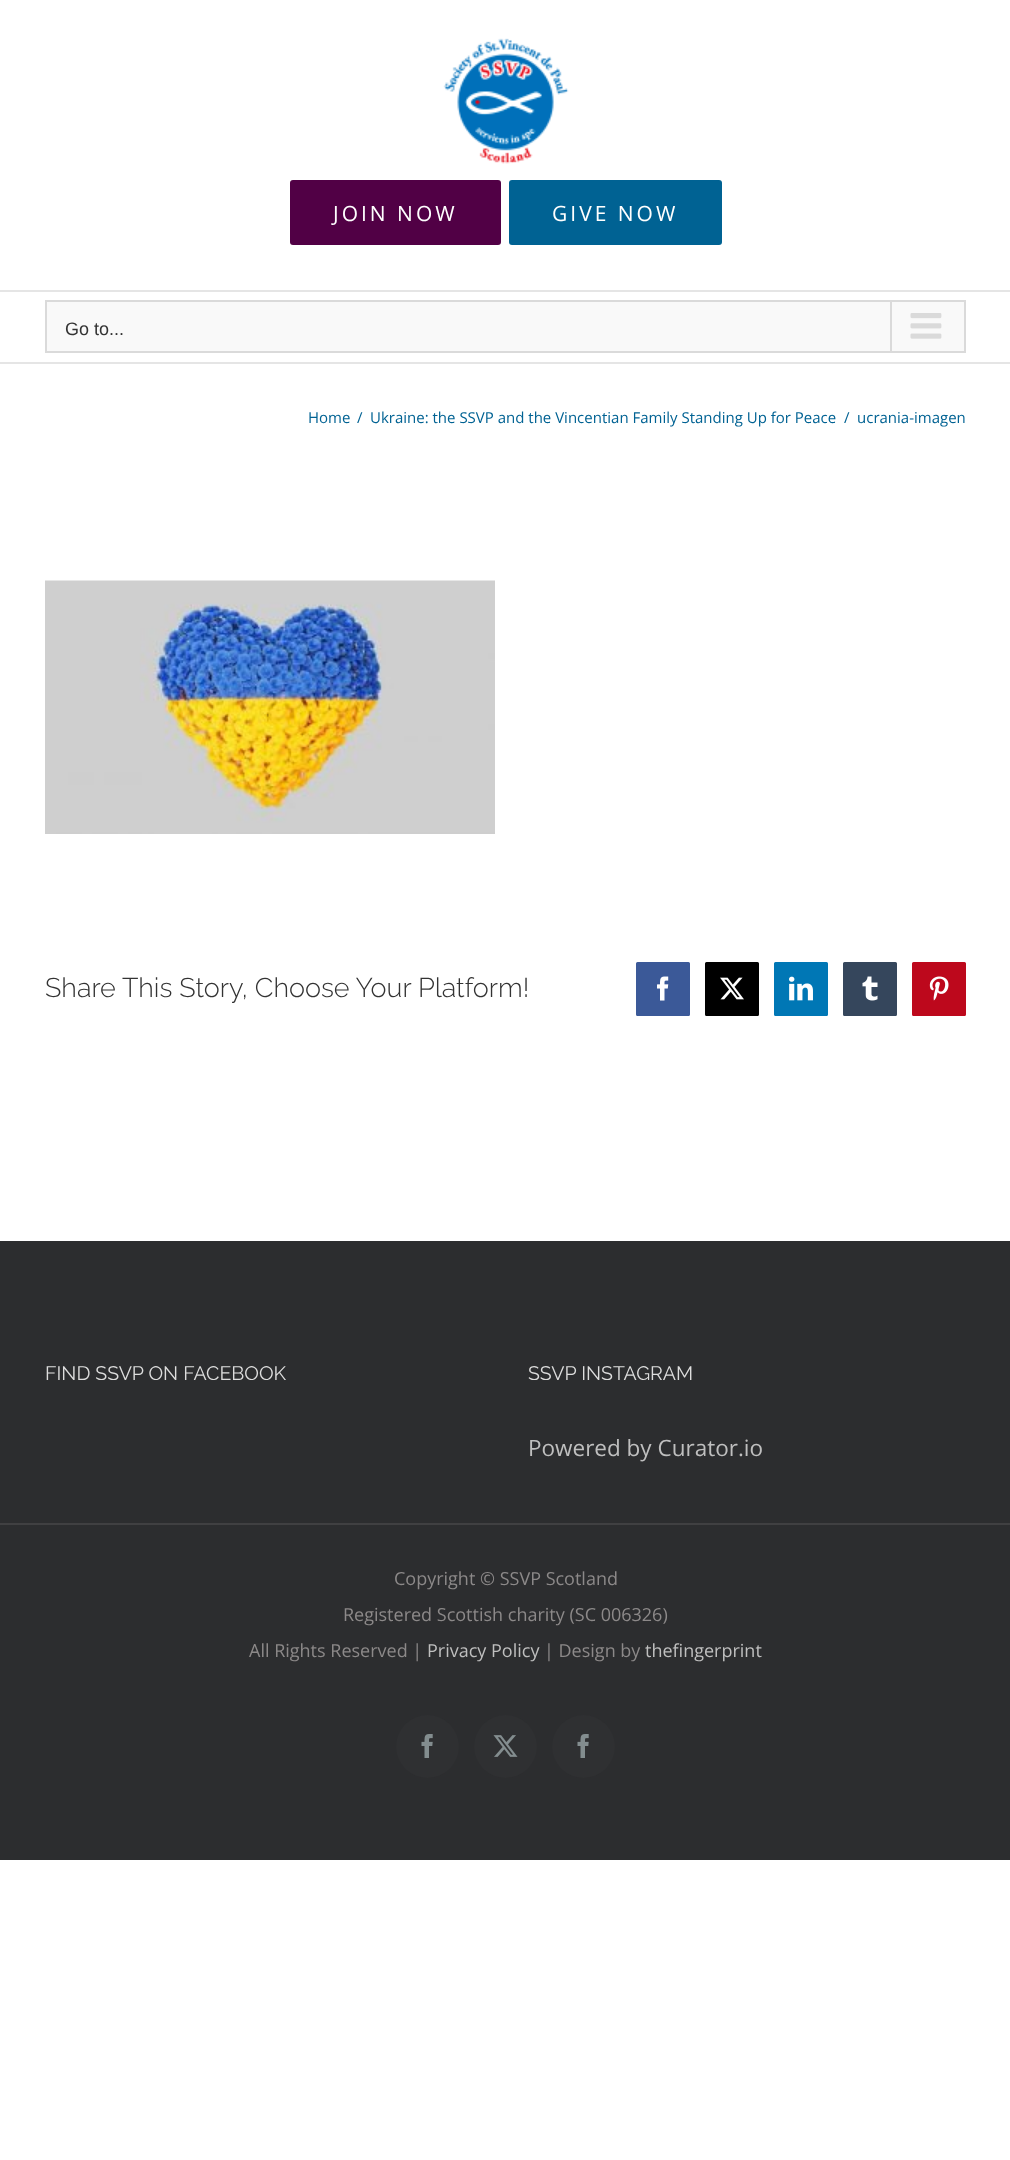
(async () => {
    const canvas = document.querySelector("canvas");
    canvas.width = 1010;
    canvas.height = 2160;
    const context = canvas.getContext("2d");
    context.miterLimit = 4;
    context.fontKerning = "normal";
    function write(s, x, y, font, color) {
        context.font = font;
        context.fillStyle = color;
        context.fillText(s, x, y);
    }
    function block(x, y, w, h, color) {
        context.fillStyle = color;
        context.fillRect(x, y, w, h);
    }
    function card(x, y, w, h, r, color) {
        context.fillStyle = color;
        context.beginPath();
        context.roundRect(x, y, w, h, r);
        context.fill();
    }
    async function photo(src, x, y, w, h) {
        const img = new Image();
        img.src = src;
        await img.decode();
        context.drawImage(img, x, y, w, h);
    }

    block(0, 0, 1010, 2160, "rgb(255, 255, 255)");
    block(0, 290, 1010, 2, "rgb(229, 229, 229)");
    await photo("media/1.png", 443, 38, 126, 126);
    card(290, 180, 211, 65, 3, "rgb(81, 0, 69)");
    context.letterSpacing = "3px";
    write("JOIN NOW", 333, 221, "21px Open Sans", "rgb(255, 255, 255)");
    card(509, 180, 213, 65, 3, "rgb(0, 98, 147)");
    write("GIVE NOW", 552, 221, "21px Open Sans", "rgb(255, 255, 255)");
    block(0, 362, 1010, 2, "rgb(229, 229, 229)");
    context.fillStyle = "rgb(249, 249, 249)";
    context.beginPath();
    context.rect(46, 301, 919, 51);
    context.fill();
    context.strokeStyle = "rgb(218, 218, 218)";
    context.lineWidth = 2;
    context.stroke();
    context.letterSpacing = "0px";
    write("Go to...", 65, 335, "18px Liberation Sans", "rgb(51, 51, 51)");
    block(890, 302, 2, 49, "rgb(218, 218, 218)");
    await photo("media/2.png", 910, 313, 32, 26);
    write("Home", 308, 423, "15px Open Sans", "rgb(0, 98, 147)");
    write("/", 357, 423, "15px Open Sans", "rgb(0, 98, 147)");
    write("Ukraine: the SSVP and the Vincentian Family Standing Up for Peace", 370, 423, "15px Open Sans", "rgb(0, 98, 147)");
    write("/", 844, 423, "15px Open Sans", "rgb(0, 98, 147)");
    write("ucrania-imagen", 857, 423, "15px Open Sans", "rgb(0, 98, 147)");
    await photo("media/3.png", 45, 580, 450, 254);
    write("Share This Story, Choose Your Platform!", 45, 997, "300 27px Raleway", "rgb(51, 51, 51)");
    context.fillStyle = "rgb(59, 89, 152)";
    context.beginPath();
    context.roundRect(637, 963, 52, 52, 0.5);
    context.fill();
    context.strokeStyle = "rgb(59, 89, 152)";
    context.stroke();
    await photo("media/4.png", 657, 976, 12, 25);
    context.fillStyle = "rgb(0, 0, 0)";
    context.beginPath();
    context.roundRect(706, 963, 52, 52, 0.5);
    context.fill();
    context.strokeStyle = "rgb(0, 0, 0)";
    context.stroke();
    await photo("media/5.png", 720, 977, 24, 23);
    context.fillStyle = "rgb(0, 119, 181)";
    context.beginPath();
    context.roundRect(775, 963, 52, 52, 0.5);
    context.fill();
    context.strokeStyle = "rgb(0, 119, 181)";
    context.stroke();
    await photo("media/6.png", 789, 976, 24, 25);
    context.fillStyle = "rgb(53, 70, 92)";
    context.beginPath();
    context.roundRect(844, 963, 52, 52, 0.5);
    context.fill();
    context.strokeStyle = "rgb(53, 70, 92)";
    context.stroke();
    await photo("media/7.png", 862, 976, 16, 25);
    context.fillStyle = "rgb(189, 8, 28)";
    context.beginPath();
    context.roundRect(913, 963, 52, 52, 0.5);
    context.fill();
    context.strokeStyle = "rgb(189, 8, 28)";
    context.stroke();
    await photo("media/8.png", 929, 976, 20, 25);
    block(0, 1241, 1010, 282, "rgb(44, 45, 47)");
    write("FIND SSVP ON FACEBOOK", 45, 1380, "19.5px Raleway", "rgb(221, 221, 221)");
    write("SSVP INSTAGRAM", 528, 1380, "19.5px Raleway", "rgb(221, 221, 221)");
    write("Powered by Curator.io", 528, 1456, "22.5px Open Sans", "rgb(191, 191, 191)");
    block(0, 1525, 1010, 335, "rgb(44, 45, 47)");
    block(0, 1523, 1010, 2, "rgb(64, 64, 66)");
    write("Copyright © SSVP Scotland", 394, 1585, "18px Open Sans", "rgb(140, 137, 137)");
    write("Registered Scottish charity (SC 006326)", 343, 1621, "18px Open Sans", "rgb(140, 137, 137)");
    write("All Rights Reserved |", 249, 1657, "18px Open Sans", "rgb(140, 137, 137)");
    write("Privacy Policy", 427, 1657, "18px Open Sans", "rgb(191, 191, 191)");
    write("| Design by", 544, 1657, "18px Open Sans", "rgb(140, 137, 137)");
    write("thefingerprint", 645, 1657, "18px Open Sans", "rgb(191, 191, 191)");
    context.fillStyle = "rgb(47, 48, 50)";
    context.beginPath();
    context.arc(427.5, 1746.5, 31.5, 0, Math.PI * 2);
    context.fill();
    await photo("media/9.png", 421, 1734, 12, 24);
    context.beginPath();
    context.arc(505.5, 1746.5, 31.5, 0, Math.PI * 2);
    context.fill();
    await photo("media/10.png", 493, 1735, 25, 22);
    context.beginPath();
    context.arc(583.5, 1746.5, 31.5, 0, Math.PI * 2);
    context.fill();
    await photo("media/9.png", 577, 1734, 12, 24);
})();
